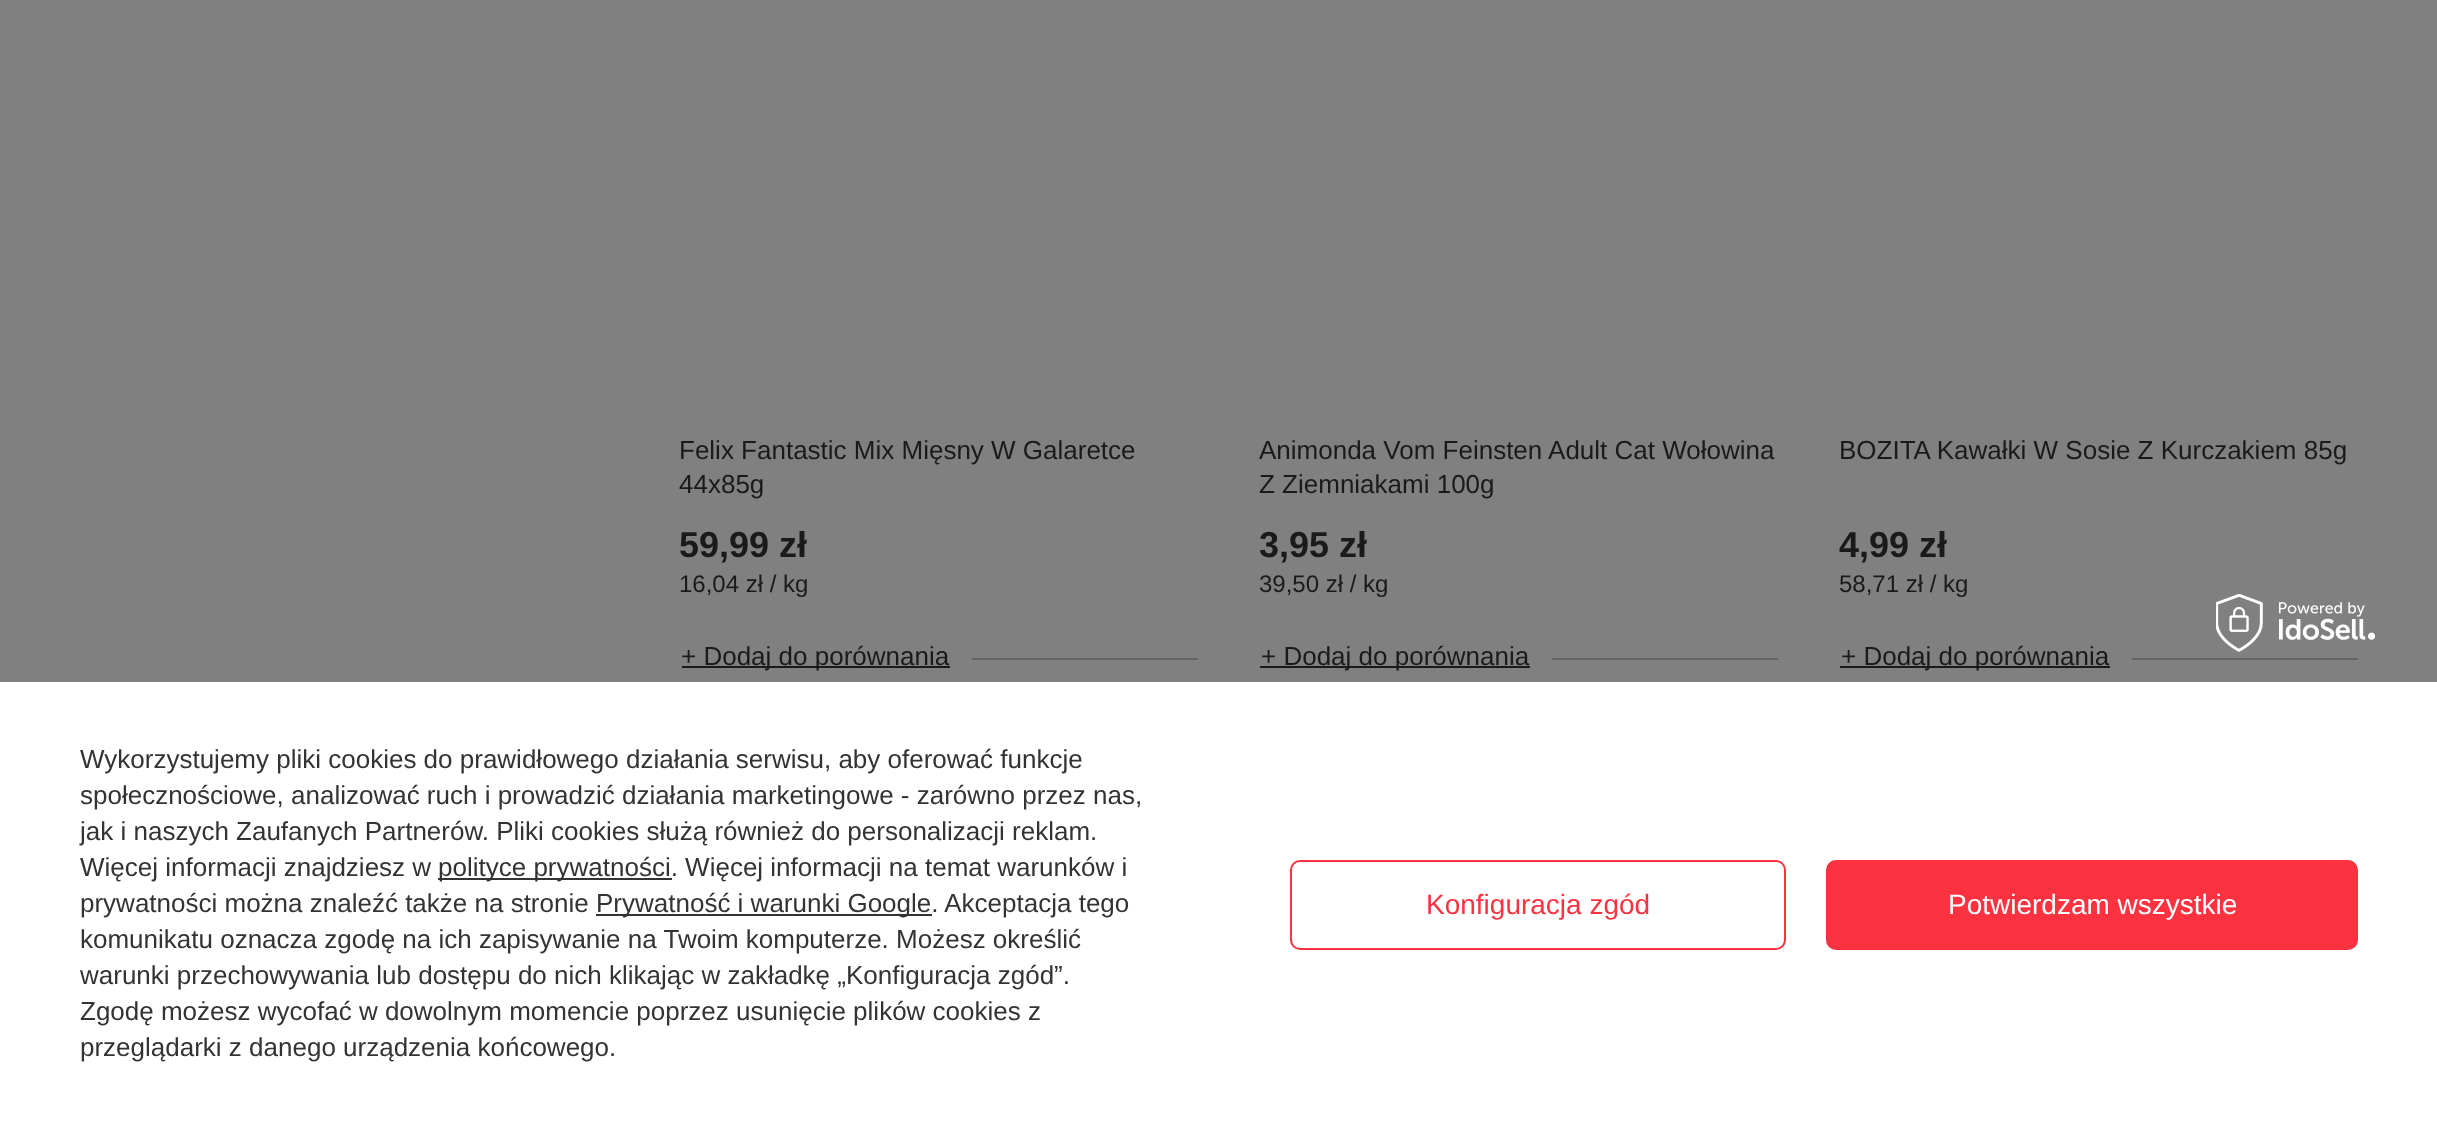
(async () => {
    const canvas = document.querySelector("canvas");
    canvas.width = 2437;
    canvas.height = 1125;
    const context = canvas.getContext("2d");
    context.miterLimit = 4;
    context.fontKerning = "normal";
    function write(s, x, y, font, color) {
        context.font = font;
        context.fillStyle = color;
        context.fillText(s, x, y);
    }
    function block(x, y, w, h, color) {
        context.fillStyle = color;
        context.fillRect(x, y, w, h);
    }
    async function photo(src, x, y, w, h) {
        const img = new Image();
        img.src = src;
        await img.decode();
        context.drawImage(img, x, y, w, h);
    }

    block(0, 0, 2437, 1125, "rgb(128, 128, 128)");
    write("Felix Fantastic Mix Mięsny W Galaretce", 679, 459, "26px Liberation Sans", "rgb(26, 26, 26)");
    write("44x85g", 679, 493, "26px Liberation Sans", "rgb(26, 26, 26)");
    write("59,99 zł", 679, 557, "bold 36px Liberation Sans", "rgb(26, 26, 26)");
    write("16,04 zł / kg", 679, 592, "24px Liberation Sans", "rgb(26, 26, 26)");
    block(682, 666, 268, 2, "rgb(26, 26, 26)");
    write("+ Dodaj do porównania", 681, 665, "26px Liberation Sans", "rgb(26, 26, 26)");
    block(972, 658, 226, 2, "rgb(98, 100, 100)");
    write("Animonda Vom Feinsten Adult Cat Wołowina", 1259, 459, "26px Liberation Sans", "rgb(26, 26, 26)");
    write("Z Ziemniakami 100g", 1259, 493, "26px Liberation Sans", "rgb(26, 26, 26)");
    write("3,95 zł", 1259, 557, "bold 36px Liberation Sans", "rgb(26, 26, 26)");
    write("39,50 zł / kg", 1259, 592, "24px Liberation Sans", "rgb(26, 26, 26)");
    block(1260, 666, 270, 2, "rgb(26, 26, 26)");
    write("+ Dodaj do porównania", 1261, 665, "26px Liberation Sans", "rgb(26, 26, 26)");
    block(1552, 658, 226, 2, "rgb(98, 100, 100)");
    write("BOZITA Kawałki W Sosie Z Kurczakiem 85g", 1839, 459, "26px Liberation Sans", "rgb(26, 26, 26)");
    write("4,99 zł", 1839, 557, "bold 36px Liberation Sans", "rgb(26, 26, 26)");
    write("58,71 zł / kg", 1839, 592, "24px Liberation Sans", "rgb(26, 26, 26)");
    block(1840, 666, 270, 2, "rgb(26, 26, 26)");
    write("+ Dodaj do porównania", 1841, 665, "26px Liberation Sans", "rgb(26, 26, 26)");
    block(2132, 658, 226, 2, "rgb(98, 100, 100)");
    block(0, 682, 2437, 443, "rgb(255, 255, 255)");
    await photo("media/1.png", 2216, 594, 159, 58);
    write("Wykorzystujemy pliki cookies do prawidłowego działania serwisu, aby oferować funkcje", 80, 768, "26px Liberation Sans", "rgb(51, 51, 51)");
    write("społecznościowe, analizować ruch i prowadzić działania marketingowe - zarówno przez nas,", 80, 804, "26px Liberation Sans", "rgb(51, 51, 51)");
    write("jak i naszych Zaufanych Partnerów. Pliki cookies służą również do personalizacji reklam.", 80, 840, "26px Liberation Sans", "rgb(51, 51, 51)");
    write("Więcej informacji znajdziesz w", 80, 876, "26px Liberation Sans", "rgb(51, 51, 51)");
    block(438, 878, 234, 2, "rgb(51, 51, 51)");
    write("polityce prywatności. Więcej informacji na temat warunków i", 438, 876, "26px Liberation Sans", "rgb(51, 51, 51)");
    write("prywatności można znaleźć także na stronie", 80, 912, "26px Liberation Sans", "rgb(51, 51, 51)");
    block(596, 914, 336, 2, "rgb(51, 51, 51)");
    write("Prywatność i warunki Google. Akceptacja tego", 596, 912, "26px Liberation Sans", "rgb(51, 51, 51)");
    write("komunikatu oznacza zgodę na ich zapisywanie na Twoim komputerze. Możesz określić", 80, 948, "26px Liberation Sans", "rgb(51, 51, 51)");
    write("warunki przechowywania lub dostępu do nich klikając w zakładkę „Konfiguracja zgód”.", 80, 984, "26px Liberation Sans", "rgb(51, 51, 51)");
    write("Zgodę możesz wycofać w dowolnym momencie poprzez usunięcie plików cookies z", 80, 1020, "26px Liberation Sans", "rgb(51, 51, 51)");
    write("przeglądarki z danego urządzenia końcowego.", 80, 1056, "26px Liberation Sans", "rgb(51, 51, 51)");
    context.beginPath();
    context.roundRect(1291, 861, 494, 88, 9);
    context.strokeStyle = "rgb(252, 50, 64)";
    context.lineWidth = 2;
    context.stroke();
    write("Konfiguracja zgód", 1426, 914, "28px Liberation Sans", "rgb(252, 50, 64)");
    context.beginPath();
    context.roundRect(1827, 861, 530, 88, 9);
    context.fill();
    context.stroke();
    write("Potwierdzam wszystkie", 1948, 914, "28px Liberation Sans", "rgb(255, 255, 255)");
})();
